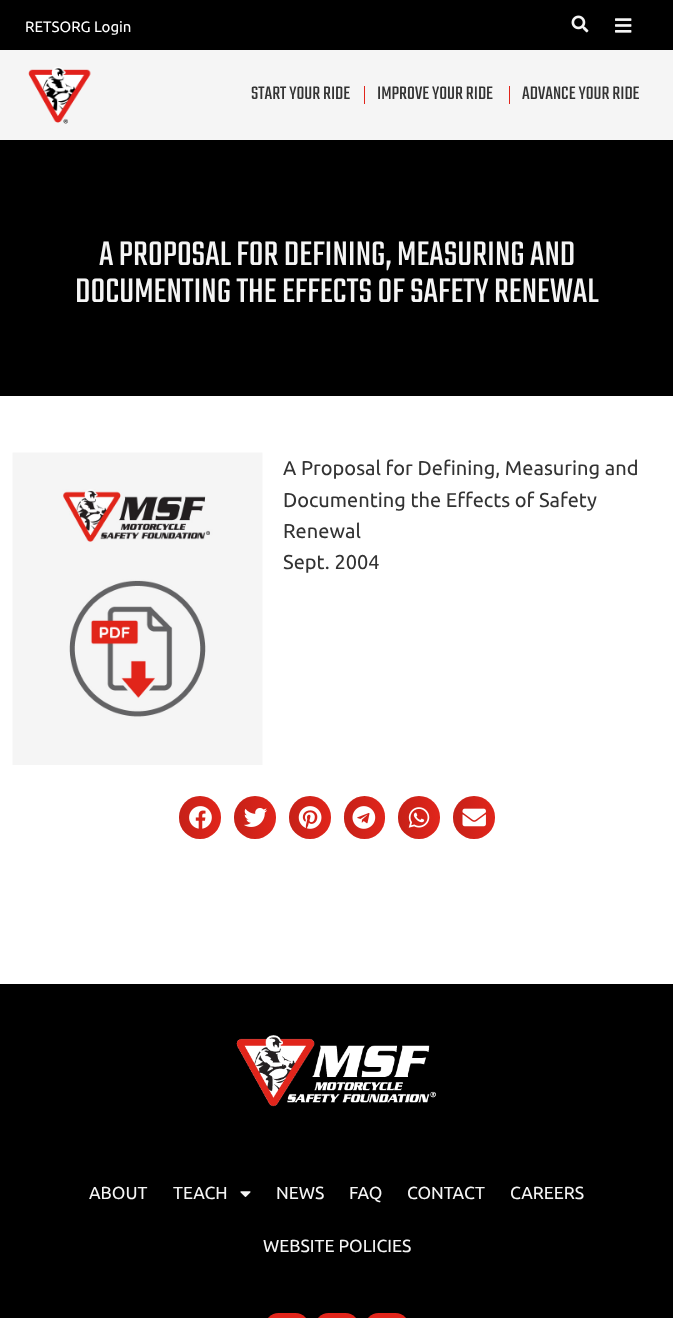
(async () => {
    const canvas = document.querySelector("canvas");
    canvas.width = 673;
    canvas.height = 1318;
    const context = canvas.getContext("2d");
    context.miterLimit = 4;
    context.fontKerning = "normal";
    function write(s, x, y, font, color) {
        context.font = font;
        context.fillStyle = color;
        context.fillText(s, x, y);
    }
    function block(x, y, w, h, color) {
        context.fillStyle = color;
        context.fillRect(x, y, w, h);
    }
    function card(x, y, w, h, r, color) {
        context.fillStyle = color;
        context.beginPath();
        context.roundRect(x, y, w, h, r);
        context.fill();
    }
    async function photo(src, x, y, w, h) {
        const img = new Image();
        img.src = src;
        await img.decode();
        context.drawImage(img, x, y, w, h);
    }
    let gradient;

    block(0, 0, 673, 1318, "rgb(255, 255, 255)");
    block(0, 0, 673, 50, "rgb(0, 0, 0)");
    write("RETSORG Login", 25, 32, "15px Ubuntu", "rgb(255, 255, 255)");
    await photo("media/1.png", 571, 15, 18, 18);
    await photo("media/2.png", 615, 18, 17, 15);
    block(0, 50, 673, 90, "rgb(245, 245, 245)");
    await photo("media/3.png", 28, 67, 63, 57);
    block(364, 86, 1, 18, "rgb(225, 37, 27)");
    write("START YOUR RIDE", 251, 99, "20px Teko", "rgb(51, 51, 51)");
    block(509, 86, 1, 18, "rgb(225, 37, 27)");
    write("IMPROVE YOUR RIDE", 377, 99, "20px Teko", "rgb(51, 51, 51)");
    write("ADVANCE YOUR RIDE", 522, 99, "20px Teko", "rgb(51, 51, 51)");
    block(0, 140, 673, 256, "rgb(0, 0, 0)");
    write("A PROPOSAL FOR DEFINING, MEASURING AND", 99, 265, "37.5px Teko", "rgb(245, 245, 245)");
    write("DOCUMENTING THE EFFECTS OF SAFETY RENEWAL", 75, 302, "37.5px Teko", "rgb(245, 245, 245)");
    await photo("media/4.png", 12, 452, 251, 313);
    write("A Proposal for Defining, Measuring and", 283, 475, "20px Ubuntu", "rgb(51, 51, 51)");
    write("Documenting the Effects of Safety", 283, 507, "20px Ubuntu", "rgb(51, 51, 51)");
    write("Renewal", 283, 538, "20px Ubuntu", "rgb(51, 51, 51)");
    write("Sept. 2004", 283, 569, "20px Ubuntu", "rgb(51, 51, 51)");
    card(179, 796, 42, 43, 21, "rgb(225, 37, 27)");
    gradient = context.createLinearGradient(179, 818, 221, 818);
    gradient.addColorStop(0, "rgba(0, 0, 0, 0.12)");
    gradient.addColorStop(1, "rgba(0, 0, 0, 0)");
    context.fillStyle = gradient;
    context.beginPath();
    context.roundRect(179, 796, 42, 43, 21);
    context.fill();
    await photo("media/5.png", 189, 806, 23, 23);
    card(234, 796, 42, 43, 21, "rgb(225, 37, 27)");
    gradient = context.createLinearGradient(234, 818, 276, 818);
    gradient.addColorStop(0, "rgba(0, 0, 0, 0.12)");
    gradient.addColorStop(1, "rgba(0, 0, 0, 0)");
    context.fillStyle = gradient;
    context.beginPath();
    context.roundRect(234, 796, 42, 43, 21);
    context.fill();
    await photo("media/6.png", 244, 808, 23, 19);
    card(289, 796, 42, 43, 21, "rgb(225, 37, 27)");
    gradient = context.createLinearGradient(289, 818, 331, 818);
    gradient.addColorStop(0, "rgba(0, 0, 0, 0.12)");
    gradient.addColorStop(1, "rgba(0, 0, 0, 0)");
    context.fillStyle = gradient;
    context.beginPath();
    context.roundRect(289, 796, 42, 43, 21);
    context.fill();
    await photo("media/7.png", 298, 806, 24, 23);
    card(344, 796, 41, 43, 20.5, "rgb(225, 37, 27)");
    gradient = context.createLinearGradient(344, 818, 385, 818);
    gradient.addColorStop(0, "rgba(0, 0, 0, 0.12)");
    gradient.addColorStop(1, "rgba(0, 0, 0, 0)");
    context.fillStyle = gradient;
    context.beginPath();
    context.roundRect(344, 796, 41, 43, 20.5);
    context.fill();
    await photo("media/8.png", 352, 806, 24, 23);
    card(398, 796, 42, 43, 21, "rgb(225, 37, 27)");
    gradient = context.createLinearGradient(398, 818, 440, 818);
    gradient.addColorStop(0, "rgba(0, 0, 0, 0.12)");
    gradient.addColorStop(1, "rgba(0, 0, 0, 0)");
    context.fillStyle = gradient;
    context.beginPath();
    context.roundRect(398, 796, 42, 43, 21);
    context.fill();
    await photo("media/9.png", 408, 807, 22, 21);
    card(453, 796, 42, 43, 21, "rgb(225, 37, 27)");
    gradient = context.createLinearGradient(453, 818, 495, 818);
    gradient.addColorStop(0, "rgba(0, 0, 0, 0.12)");
    gradient.addColorStop(1, "rgba(0, 0, 0, 0)");
    context.fillStyle = gradient;
    context.beginPath();
    context.roundRect(453, 796, 42, 43, 21);
    context.fill();
    await photo("media/10.png", 462, 808, 24, 19);
    block(0, 984, 673, 334, "rgb(0, 0, 0)");
    await photo("media/11.png", 236, 1035, 201, 72);
    write("ABOUT", 89, 1199, "17.5px Ubuntu", "rgb(245, 245, 245)");
    write("TEACH", 173, 1199, "17.5px Ubuntu", "rgb(245, 245, 245)");
    await photo("media/12.png", 240, 1191, 11, 6);
    write("NEWS", 276, 1199, "17.5px Ubuntu", "rgb(245, 245, 245)");
    write("FAQ", 349, 1199, "17.5px Ubuntu", "rgb(245, 245, 245)");
    write("CONTACT", 407, 1199, "17.5px Ubuntu", "rgb(245, 245, 245)");
    write("CAREERS", 510, 1199, "17.5px Ubuntu", "rgb(245, 245, 245)");
    write("WEBSITE POLICIES", 263, 1252, "17.5px Ubuntu", "rgb(245, 245, 245)");
    card(265, 1313, 44, 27, 21.5, "rgb(225, 37, 27)");
    card(315, 1313, 44, 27, 21.5, "rgb(225, 37, 27)");
    card(365, 1313, 44, 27, 21.5, "rgb(225, 37, 27)");
})();
